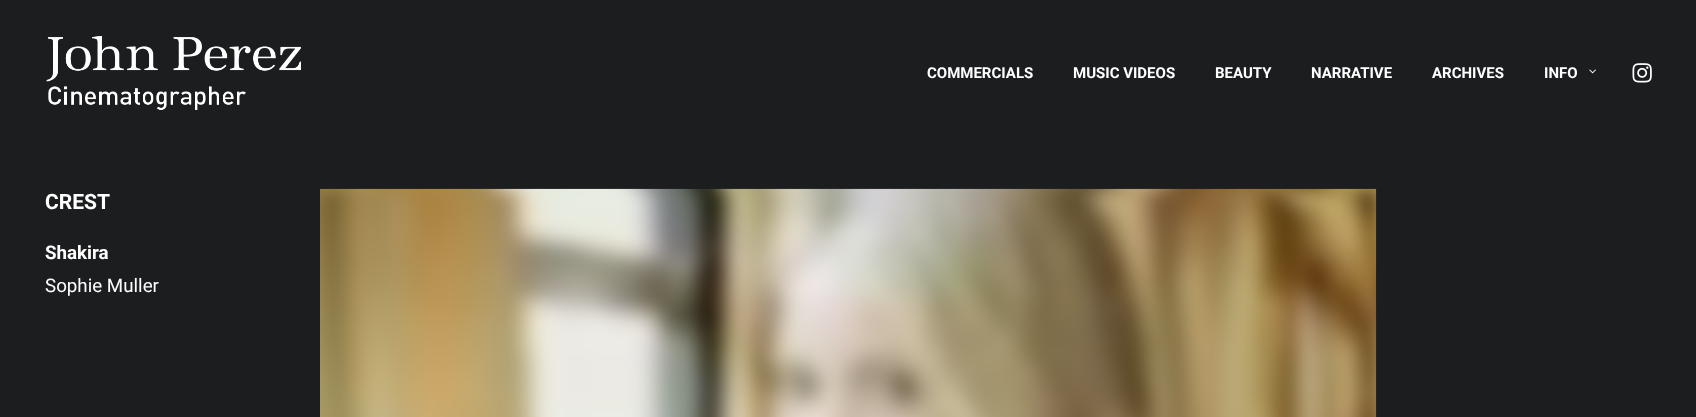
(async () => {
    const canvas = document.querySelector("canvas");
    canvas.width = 1696;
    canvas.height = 417;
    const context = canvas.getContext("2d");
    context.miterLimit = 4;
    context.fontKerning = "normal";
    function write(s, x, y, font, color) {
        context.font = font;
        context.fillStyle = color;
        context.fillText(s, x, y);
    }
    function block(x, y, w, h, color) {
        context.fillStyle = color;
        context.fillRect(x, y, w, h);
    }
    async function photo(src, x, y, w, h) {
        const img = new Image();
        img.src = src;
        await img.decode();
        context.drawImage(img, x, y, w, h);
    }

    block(0, 0, 1696, 417, "rgb(27, 29, 31)");
    await photo("media/1.png", 46, 36, 255, 74);
    write("COMMERCIALS", 927, 78, "bold 15px Roboto", "rgb(255, 255, 255)");
    write("MUSIC VIDEOS", 1073, 78, "bold 15px Roboto", "rgb(255, 255, 255)");
    write("BEAUTY", 1215, 78, "bold 15px Roboto", "rgb(255, 255, 255)");
    write("NARRATIVE", 1311, 78, "bold 15px Roboto", "rgb(255, 255, 255)");
    write("ARCHIVES", 1432, 78, "bold 15px Roboto", "rgb(255, 255, 255)");
    write("INFO", 1544, 78, "bold 15px Roboto", "rgb(255, 255, 255)");
    await photo("media/2.png", 1589, 69, 7, 5);
    await photo("media/3.png", 1632, 63, 20, 20);
    write("CREST", 45, 209, "bold 21px Roboto", "rgb(255, 255, 255)");
    write("Shakira", 45, 259, "bold 18.75px Roboto", "rgb(255, 255, 255)");
    write("Sophie Muller", 45, 292, "18.75px Roboto", "rgb(255, 255, 255)");
    await photo("media/4.png", 320, 188, 1057, 229);
})();
